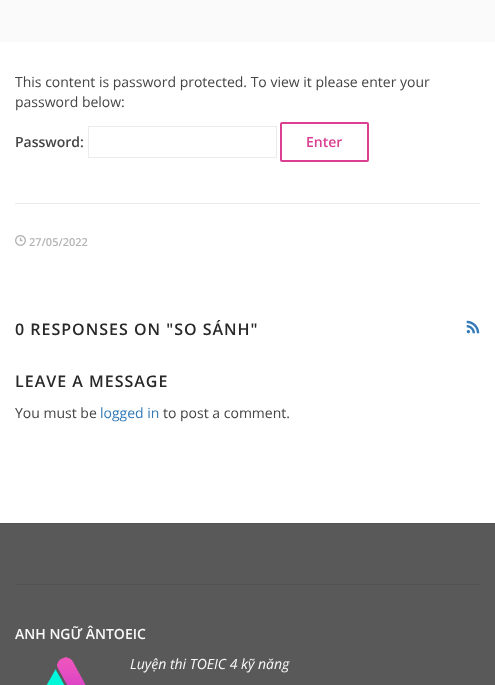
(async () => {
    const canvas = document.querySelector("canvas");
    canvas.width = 495;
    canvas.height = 685;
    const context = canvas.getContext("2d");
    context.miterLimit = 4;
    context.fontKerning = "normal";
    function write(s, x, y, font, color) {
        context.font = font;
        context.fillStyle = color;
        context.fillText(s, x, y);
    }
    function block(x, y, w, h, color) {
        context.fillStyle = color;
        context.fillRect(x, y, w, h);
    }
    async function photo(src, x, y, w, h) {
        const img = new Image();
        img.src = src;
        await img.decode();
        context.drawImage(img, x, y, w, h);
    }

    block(0, 0, 495, 685, "rgb(255, 255, 255)");
    block(0, 0, 495, 42, "rgb(250, 250, 250)");
    write("This content is password protected. To view it please enter your", 15, 87, "14px Open Sans", "rgb(68, 68, 68)");
    write("password below:", 15, 107, "14px Open Sans", "rgb(68, 68, 68)");
    write("Password:", 15, 147, "600 14px Open Sans", "rgb(68, 68, 68)");
    context.strokeStyle = "rgb(235, 235, 235)";
    context.strokeRect(88.5, 126.5, 188, 31);
    context.beginPath();
    context.roundRect(281, 123, 87, 38, 1);
    context.strokeStyle = "rgb(218, 63, 145)";
    context.lineWidth = 2;
    context.stroke();
    write("Enter", 306, 147, "600 14px Open Sans", "rgb(218, 63, 145)");
    block(15, 203, 465, 1, "rgb(235, 235, 235)");
    await photo("media/1.png", 15, 235, 11, 11);
    write("27/05/2022", 29, 246, "600 11px Open Sans", "rgb(180, 180, 180)");
    context.letterSpacing = "1px";
    write("0 RESPONSES ON \"SO SÁNH\"", 15, 335, "600 16px Open Sans", "rgb(40, 40, 40)");
    await photo("media/2.png", 466, 320, 14, 14);
    write("LEAVE A MESSAGE", 15, 387, "600 16px Open Sans", "rgb(40, 40, 40)");
    context.letterSpacing = "0px";
    write("You must be", 15, 418, "14px Open Sans", "rgb(68, 68, 68)");
    write("logged in", 100, 418, "14px Open Sans", "rgb(51, 122, 183)");
    write("to post a comment.", 163, 418, "14px Open Sans", "rgb(68, 68, 68)");
    block(0, 524, 495, 161, "rgb(89, 89, 89)");
    block(0, 523, 495, 1, "rgb(82, 82, 82)");
    block(15, 584, 465, 1, "rgb(82, 82, 82)");
    write("ANH NGỮ ÂNTOEIC", 15, 639, "600 14px Open Sans", "rgb(249, 249, 249)");
    await photo("media/3.png", 46, 657, 40, 28);
    write("Luyện thi TOEIC 4 kỹ năng", 130, 669, "italic 14px Open Sans", "rgb(249, 249, 249)");
})();
